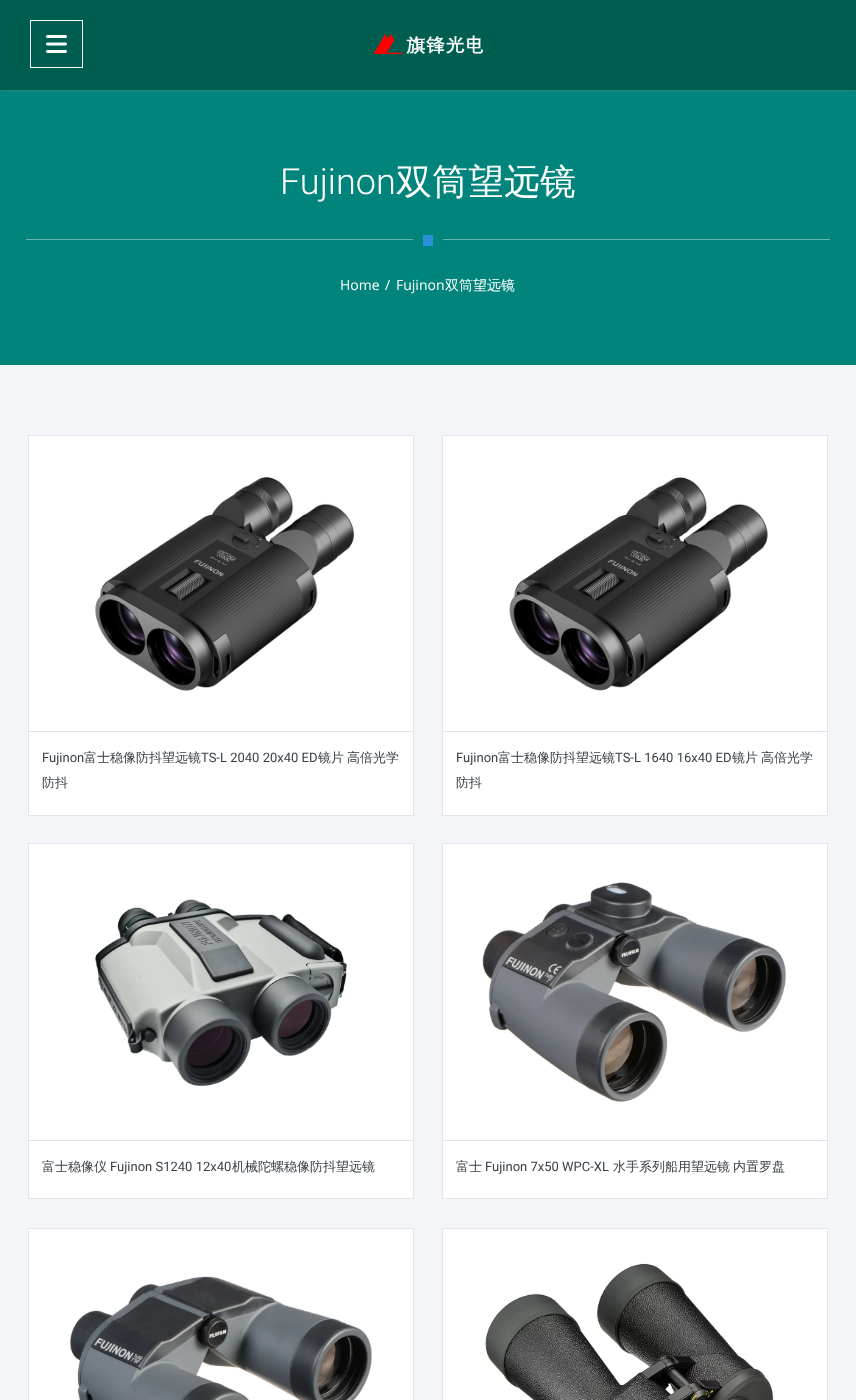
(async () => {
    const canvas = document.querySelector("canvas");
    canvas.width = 856;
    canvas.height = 1400;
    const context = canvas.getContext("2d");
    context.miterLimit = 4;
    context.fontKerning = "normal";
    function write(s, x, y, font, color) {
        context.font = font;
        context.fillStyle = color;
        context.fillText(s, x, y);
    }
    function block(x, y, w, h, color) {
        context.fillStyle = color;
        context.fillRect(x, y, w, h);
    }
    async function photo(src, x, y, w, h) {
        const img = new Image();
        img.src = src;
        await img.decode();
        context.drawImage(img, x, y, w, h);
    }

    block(0, 0, 856, 1400, "rgb(244, 245, 249)");
    block(0, 90, 856, 275, "rgb(0, 132, 123)");
    context.fillStyle = "rgba(161, 161, 161, 0.25)";
    context.filter = "blur(1px)";
    context.beginPath();
    context.rect(0, 1, 856, 90);
    context.fill();
    context.filter = "none";
    block(0, 0, 856, 90, "rgb(0, 94, 81)");
    context.strokeStyle = "rgb(255, 255, 255)";
    context.strokeRect(30.5, 20.5, 52, 47);
    await photo("media/1.png", 46, 35, 21, 18);
    await photo("media/2.png", 373, 33, 110, 22);
    write("Fujinon", 280, 194, "300 36px Roboto", "rgb(255, 255, 255)");
    write("双筒望远镜", 396, 194, "500 36px WenQuanYi Zen Hei", "rgb(255, 255, 255)");
    block(26, 239, 387, 1, "rgb(102, 181, 176)");
    block(423, 235, 10, 11, "rgb(43, 144, 217)");
    block(443, 239, 387, 1, "rgb(102, 181, 176)");
    write("Home", 340, 290, "14px Open Sans", "rgb(255, 255, 255)");
    write("/", 385, 290, "14px Open Sans", "rgb(255, 255, 255)");
    write("Fujinon", 396, 290, "14px Open Sans", "rgb(255, 255, 255)");
    write("双筒望远镜", 445, 290, "500 14px WenQuanYi Zen Hei", "rgb(255, 255, 255)");
    context.strokeStyle = "rgb(223, 229, 233)";
    context.strokeRect(28.5, 435.5, 385, 296);
    block(29, 436, 384, 295, "rgb(255, 255, 255)");
    await photo("media/3.png", 95, 477, 259, 214);
    context.beginPath();
    context.rect(28.5, 731.5, 385, 84);
    context.fill();
    context.stroke();
    write("Fujinon", 42, 762, "13px Roboto", "rgb(56, 64, 71)");
    write("富士稳像防抖望远镜", 84, 762, "500 13px WenQuanYi Zen Hei", "rgb(56, 64, 71)");
    write("TS-L 2040 20x40 ED", 201, 762, "13px Roboto", "rgb(56, 64, 71)");
    write("镜片", 318, 762, "500 13px WenQuanYi Zen Hei", "rgb(56, 64, 71)");
    write("高倍光学", 347, 762, "500 13px WenQuanYi Zen Hei", "rgb(56, 64, 71)");
    write("防抖", 42, 787, "500 13px WenQuanYi Zen Hei", "rgb(56, 64, 71)");
    context.strokeRect(442.5, 435.5, 385, 296);
    block(443, 436, 384, 295, "rgb(255, 255, 255)");
    await photo("media/4.png", 509, 477, 259, 214);
    context.beginPath();
    context.rect(442.5, 731.5, 385, 84);
    context.fill();
    context.stroke();
    write("Fujinon", 456, 762, "13px Roboto", "rgb(56, 64, 71)");
    write("富士稳像防抖望远镜", 498, 762, "500 13px WenQuanYi Zen Hei", "rgb(56, 64, 71)");
    write("TS-L 1640 16x40 ED", 615, 762, "13px Roboto", "rgb(56, 64, 71)");
    write("镜片", 732, 762, "500 13px WenQuanYi Zen Hei", "rgb(56, 64, 71)");
    write("高倍光学", 761, 762, "500 13px WenQuanYi Zen Hei", "rgb(56, 64, 71)");
    write("防抖", 456, 787, "500 13px WenQuanYi Zen Hei", "rgb(56, 64, 71)");
    context.strokeRect(28.5, 843.5, 385, 297);
    block(29, 844, 384, 296, "rgb(255, 255, 255)");
    await photo("media/5.png", 95, 899, 253, 187);
    context.beginPath();
    context.rect(28.5, 1140.5, 385, 58);
    context.fill();
    context.stroke();
    write("富士稳像仪", 42, 1171, "500 13px WenQuanYi Zen Hei", "rgb(56, 64, 71)");
    write("Fujinon S1240 12x40", 110, 1171, "13px Roboto", "rgb(56, 64, 71)");
    write("机械陀螺稳像防抖望远镜", 232, 1171, "500 13px WenQuanYi Zen Hei", "rgb(56, 64, 71)");
    context.strokeRect(442.5, 843.5, 385, 297);
    block(443, 844, 384, 296, "rgb(255, 255, 255)");
    await photo("media/6.png", 482, 882, 304, 220);
    context.beginPath();
    context.rect(442.5, 1140.5, 385, 58);
    context.fill();
    context.stroke();
    write("富士", 456, 1171, "500 13px WenQuanYi Zen Hei", "rgb(56, 64, 71)");
    write("Fujinon 7x50 WPC-XL", 485, 1171, "13px Roboto", "rgb(56, 64, 71)");
    write("水手系列船用望远镜", 613, 1171, "500 13px WenQuanYi Zen Hei", "rgb(56, 64, 71)");
    write("内置罗盘", 733, 1171, "500 13px WenQuanYi Zen Hei", "rgb(56, 64, 71)");
    context.strokeRect(28.5, 1228.5, 385, 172);
    block(29, 1229, 384, 171, "rgb(255, 255, 255)");
    await photo("media/7.png", 70, 1276, 302, 124);
    context.strokeRect(442.5, 1228.5, 385, 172);
    block(443, 1229, 384, 171, "rgb(255, 255, 255)");
    await photo("media/8.png", 485, 1263, 289, 137);
})();
